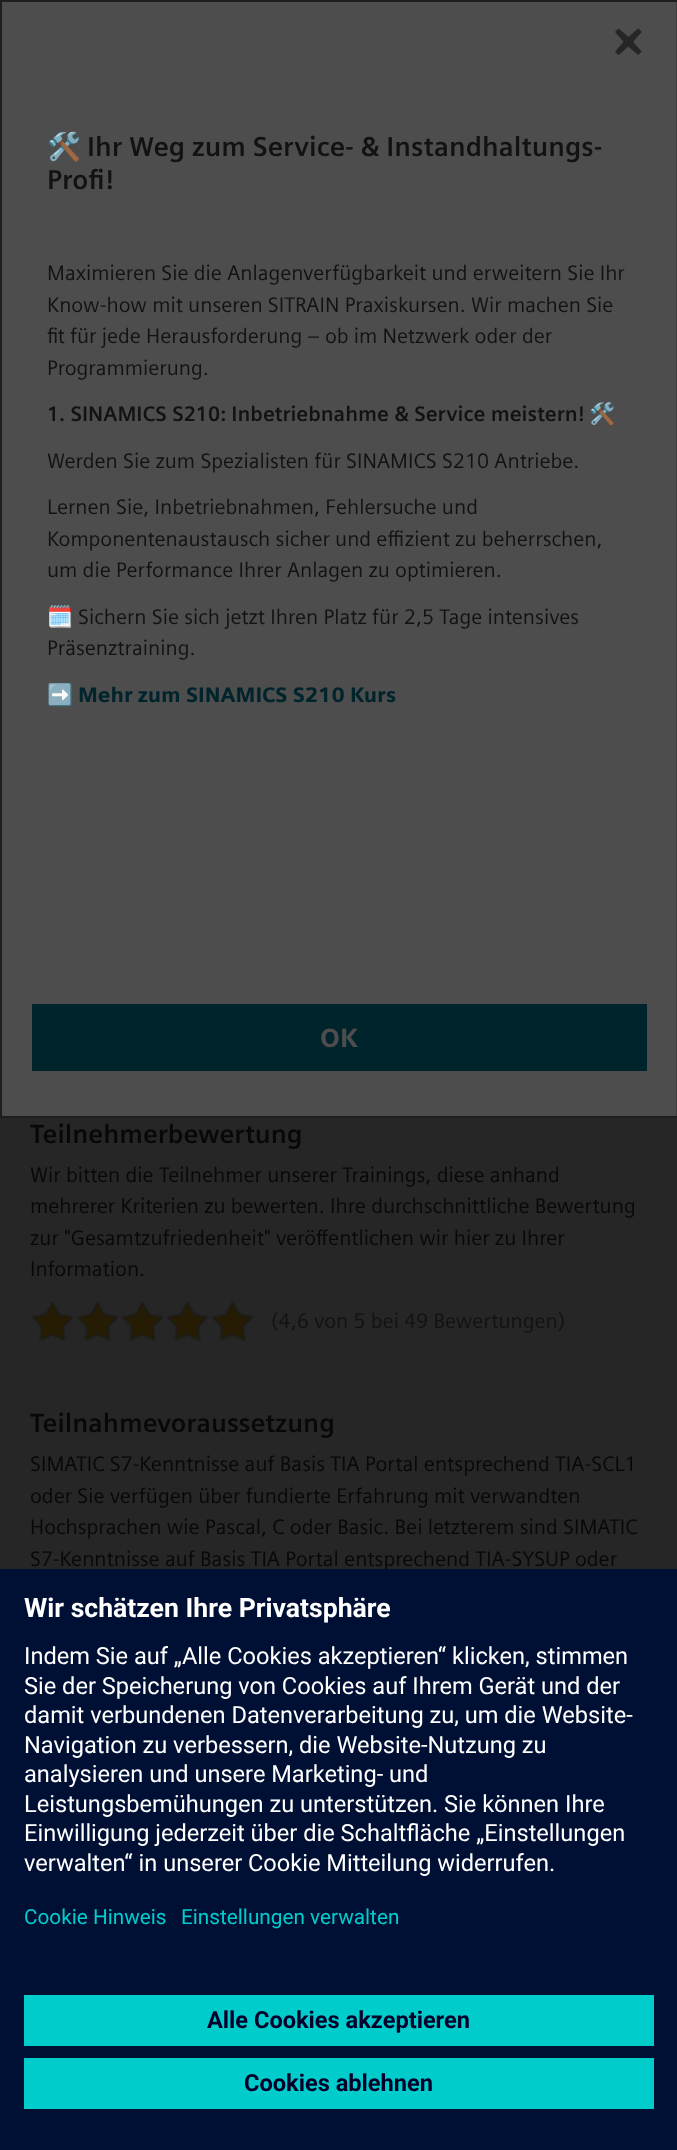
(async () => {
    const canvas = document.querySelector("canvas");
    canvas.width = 677;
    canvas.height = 2150;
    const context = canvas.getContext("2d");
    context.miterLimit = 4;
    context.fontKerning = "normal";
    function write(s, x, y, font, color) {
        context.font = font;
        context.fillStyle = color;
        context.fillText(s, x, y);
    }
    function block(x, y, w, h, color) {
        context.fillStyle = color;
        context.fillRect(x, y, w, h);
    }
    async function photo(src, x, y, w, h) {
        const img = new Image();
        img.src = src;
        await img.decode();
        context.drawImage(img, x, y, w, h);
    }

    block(0, 0, 677, 2150, "rgb(38, 38, 38)");
    block(2, 2, 675, 1114, "rgb(77, 77, 77)");
    context.strokeStyle = "rgba(0, 0, 0, 0.2)";
    context.lineWidth = 2;
    context.strokeRect(1, 1, 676, 1116);
    await photo("media/1.png", 615, 28, 27, 27);
    write("🛠️", 47, 156, "27.25px Noto Color Emoji", "rgb(16, 18, 19)");
    write("Ihr Weg zum Service- & Instandhaltungs-", 87, 156, "bold 27.25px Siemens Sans", "rgb(16, 18, 19)");
    write("Profi!", 47, 189, "bold 27.25px Siemens Sans", "rgb(16, 18, 19)");
    write("Maximieren Sie die Anlagenverfügbarkeit und erweitern Sie Ihr", 47, 280, "21px Siemens Sans", "rgb(16, 18, 19)");
    write("Know-how mit unseren SITRAIN Praxiskursen. Wir machen Sie", 47, 312, "21px Siemens Sans", "rgb(16, 18, 19)");
    write("fit für jede Herausforderung – ob im Netzwerk oder der", 47, 343, "21px Siemens Sans", "rgb(16, 18, 19)");
    write("Programmierung.", 47, 375, "21px Siemens Sans", "rgb(16, 18, 19)");
    write("1. SINAMICS S210: Inbetriebnahme & Service meistern!", 47, 421, "bold 21px Siemens Sans", "rgb(16, 18, 19)");
    write("🛠️", 589, 421, "21px Noto Color Emoji", "rgb(16, 18, 19)");
    write("Werden Sie zum Spezialisten für SINAMICS S210 Antriebe.", 47, 468, "21px Siemens Sans", "rgb(16, 18, 19)");
    write("Lernen Sie, Inbetriebnahmen, Fehlersuche und", 47, 514, "21px Siemens Sans", "rgb(16, 18, 19)");
    write("Komponentenaustausch sicher und effizient zu beherrschen,", 47, 546, "21px Siemens Sans", "rgb(16, 18, 19)");
    write("um die Performance Ihrer Anlagen zu optimieren.", 47, 577, "21px Siemens Sans", "rgb(16, 18, 19)");
    write("🗓️", 47, 624, "21px Noto Color Emoji", "rgb(16, 18, 19)");
    write("Sichern Sie sich jetzt Ihren Platz für 2,5 Tage intensives", 78, 624, "21px Siemens Sans", "rgb(16, 18, 19)");
    write("Präsenztraining.", 47, 655, "21px Siemens Sans", "rgb(16, 18, 19)");
    write("➡️", 47, 702, "21px Noto Color Emoji", "rgb(16, 18, 19)");
    write("Mehr zum SINAMICS S210 Kurs", 78, 702, "900 21px Siemens Sans", "rgb(0, 36, 44)");
    block(32, 1004, 615, 67, "rgb(0, 36, 44)");
    write("OK", 320, 1047, "900 26.25px Siemens Sans", "rgb(77, 77, 77)");
    write("Teilnehmerbewertung", 30, 1143, "bold 26.25px Siemens Sans", "rgb(7, 8, 9)");
    write("Wir bitten die Teilnehmer unserer Trainings, diese anhand", 30, 1182, "21px Siemens Sans", "rgb(7, 8, 9)");
    write("mehrerer Kriterien zu bewerten. Ihre durchschnittliche Bewertung", 30, 1213, "21px Siemens Sans", "rgb(7, 8, 9)");
    write("zur \"Gesamtzufriedenheit\" veröffentlichen wir hier zu Ihrer", 30, 1245, "21px Siemens Sans", "rgb(7, 8, 9)");
    write("Information.", 30, 1276, "21px Siemens Sans", "rgb(7, 8, 9)");
    await photo("media/2.png", 31, 1301, 43, 41);
    await photo("media/2.png", 76, 1301, 43, 41);
    await photo("media/2.png", 121, 1301, 43, 41);
    await photo("media/2.png", 166, 1301, 43, 41);
    await photo("media/2.png", 211, 1301, 43, 41);
    write("(4,6 von 5 bei 49 Bewertungen)", 271, 1328, "21px Siemens Sans", "rgb(16, 18, 19)");
    write("Teilnahmevoraussetzung", 30, 1432, "bold 26.25px Siemens Sans", "rgb(7, 8, 9)");
    write("SIMATIC S7-Kenntnisse auf Basis TIA Portal entsprechend TIA-SCL1", 30, 1471, "21px Siemens Sans", "rgb(7, 8, 9)");
    write("oder Sie verfügen über fundierte Erfahrung mit verwandten", 30, 1503, "21px Siemens Sans", "rgb(7, 8, 9)");
    write("Hochsprachen wie Pascal, C oder Basic. Bei letzterem sind SIMATIC", 30, 1534, "21px Siemens Sans", "rgb(7, 8, 9)");
    write("S7-Kenntnisse auf Basis TIA Portal entsprechend TIA-SYSUP oder", 30, 1566, "21px Siemens Sans", "rgb(7, 8, 9)");
    block(0, 1569, 677, 581, "rgb(0, 16, 52)");
    write("Wir schätzen Ihre Privatsphäre", 24, 1617, "bold 26.6px Roboto", "rgb(255, 255, 255)");
    write("Indem Sie auf „Alle Cookies akzeptieren“ klicken, stimmen", 24, 1664, "23.6px Roboto", "rgb(255, 255, 255)");
    write("Sie der Speicherung von Cookies auf Ihrem Gerät und der", 24, 1694, "23.6px Roboto", "rgb(255, 255, 255)");
    write("damit verbundenen Datenverarbeitung zu, um die Website-", 24, 1723, "23.6px Roboto", "rgb(255, 255, 255)");
    write("Navigation zu verbessern, die Website-Nutzung zu", 24, 1753, "23.6px Roboto", "rgb(255, 255, 255)");
    write("analysieren und unsere Marketing- und", 24, 1782, "23.6px Roboto", "rgb(255, 255, 255)");
    write("Leistungsbemühungen zu unterstützen. Sie können Ihre", 24, 1812, "23.6px Roboto", "rgb(255, 255, 255)");
    write("Einwilligung jederzeit über die Schaltfläche „Einstellungen", 24, 1841, "23.6px Roboto", "rgb(255, 255, 255)");
    write("verwalten“ in unserer Cookie Mitteilung widerrufen.", 24, 1871, "23.6px Roboto", "rgb(255, 255, 255)");
    write("Cookie Hinweis", 24, 1924, "20.75px Roboto", "rgb(0, 204, 204)");
    write("Einstellungen verwalten", 181, 1924, "20.75px Roboto", "rgb(0, 204, 204)");
    block(24, 1995, 630, 51, "rgb(0, 204, 204)");
    write("Alle Cookies akzeptieren", 207, 2028, "bold 23.6px Roboto", "rgb(0, 0, 40)");
    block(24, 2058, 630, 51, "rgb(0, 204, 204)");
    write("Cookies ablehnen", 244, 2091, "bold 23.6px Roboto", "rgb(0, 0, 40)");
})();
